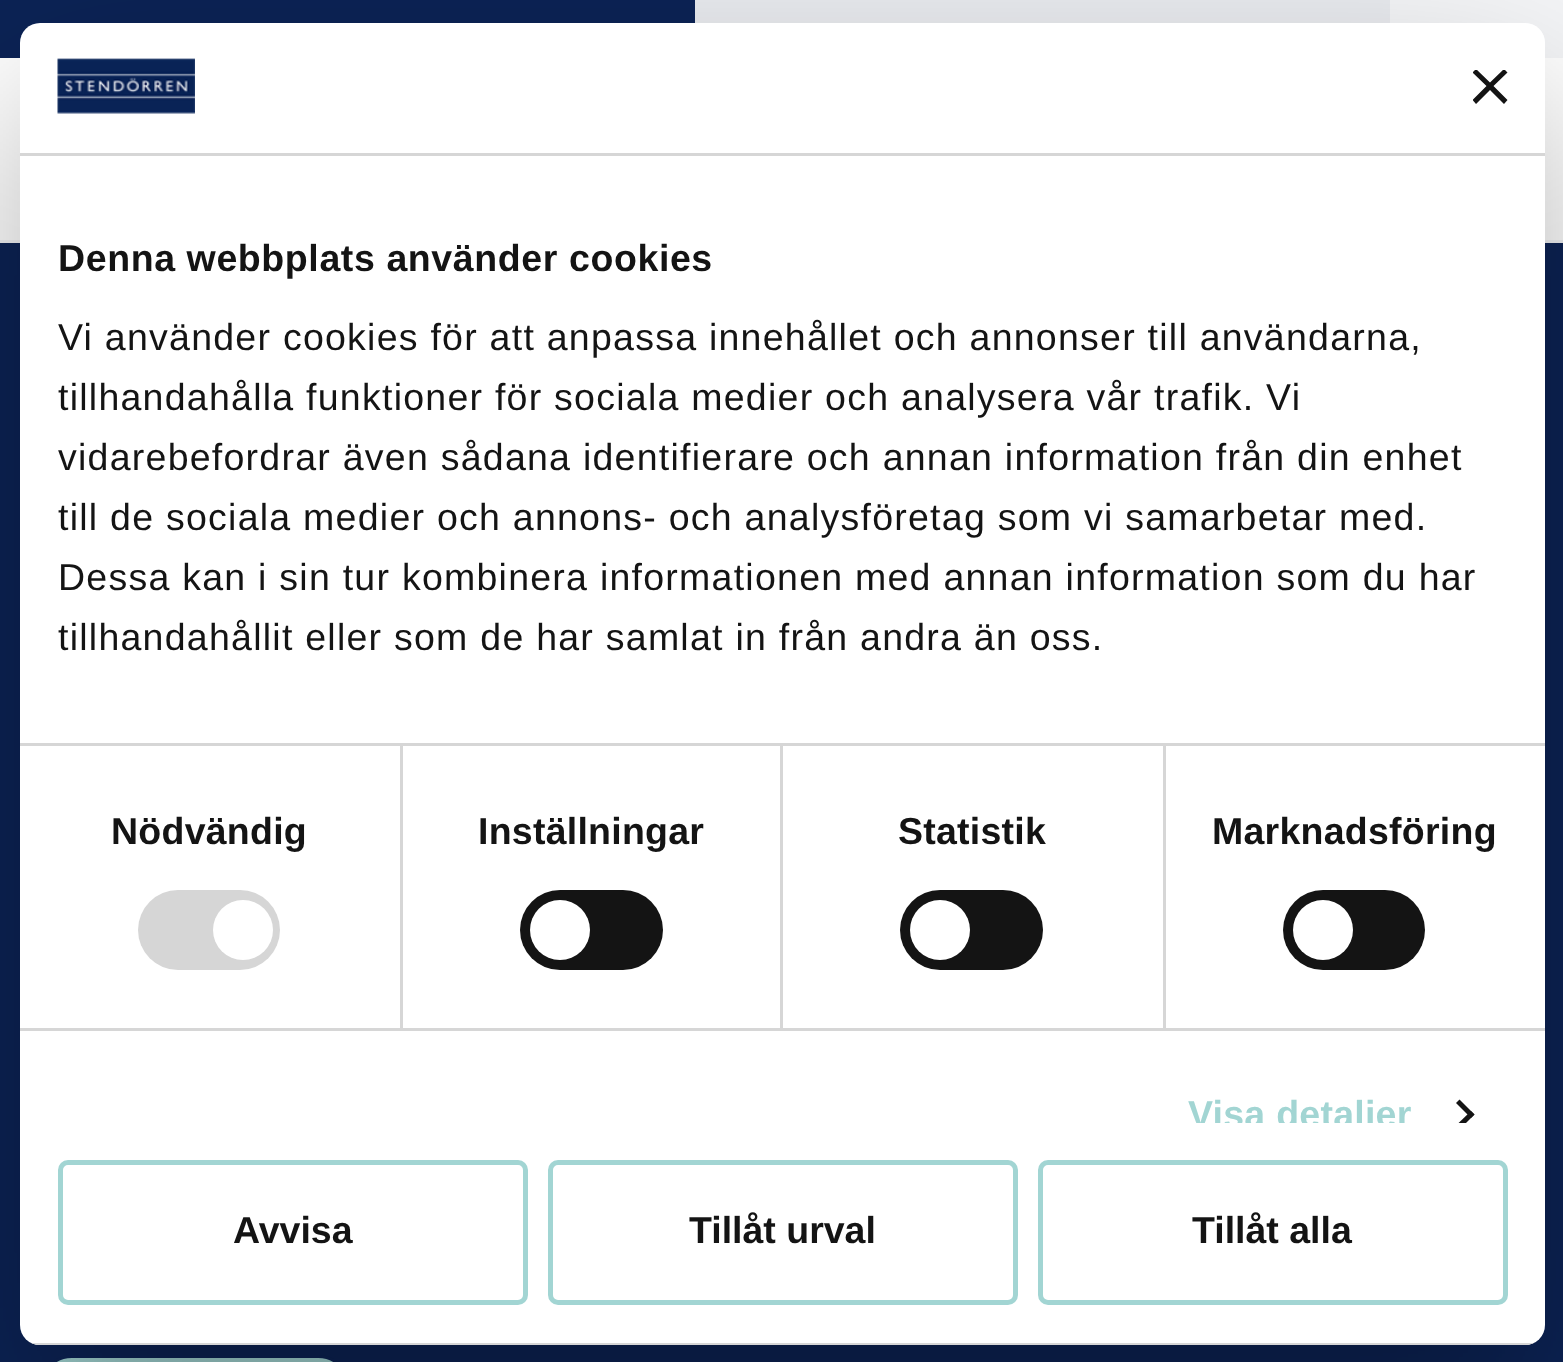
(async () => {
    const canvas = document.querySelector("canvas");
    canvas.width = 1563;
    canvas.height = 1362;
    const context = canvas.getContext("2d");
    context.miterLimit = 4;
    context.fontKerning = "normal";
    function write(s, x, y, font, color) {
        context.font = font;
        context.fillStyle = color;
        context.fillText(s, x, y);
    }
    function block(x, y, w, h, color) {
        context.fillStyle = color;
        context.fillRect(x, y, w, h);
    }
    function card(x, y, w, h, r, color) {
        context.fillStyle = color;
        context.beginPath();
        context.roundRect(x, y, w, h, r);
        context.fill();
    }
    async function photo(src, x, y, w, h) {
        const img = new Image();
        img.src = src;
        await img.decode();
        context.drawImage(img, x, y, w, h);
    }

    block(0, 0, 1563, 1362, "rgb(12, 35, 85)");
    block(0, 240, 1563, 3, "rgb(243, 244, 246)");
    block(695, 0, 695, 23, "rgb(233, 235, 239)");
    block(1390, 0, 173, 58, "rgb(244, 245, 247)");
    block(0, 58, 1563, 182, "rgb(255, 255, 255)");
    context.fillStyle = "rgb(162, 213, 211)";
    context.beginPath();
    context.roundRect(41.5, 1356.5, 307, 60, 51);
    context.fill();
    context.strokeStyle = "rgb(12, 35, 85)";
    context.lineWidth = 3;
    context.stroke();
    context.save();
    context.beginPath();
    context.moveTo(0, 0);
    context.lineTo(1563, 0);
    context.lineTo(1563, 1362);
    context.lineTo(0, 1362);
    context.closePath();
    context.moveTo(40, 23);
    context.lineTo(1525, 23);
    context.bezierCurveTo(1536, 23, 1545, 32, 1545, 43);
    context.lineTo(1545, 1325);
    context.bezierCurveTo(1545, 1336, 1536, 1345, 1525, 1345);
    context.lineTo(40, 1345);
    context.bezierCurveTo(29, 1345, 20, 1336, 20, 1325);
    context.lineTo(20, 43);
    context.bezierCurveTo(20, 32, 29, 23, 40, 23);
    context.closePath();
    context.clip("evenodd");
    context.fillStyle = "rgba(0, 0, 0, 0.3)";
    context.filter = "blur(85px)";
    context.beginPath();
    context.roundRect(20, 103, 1525, 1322, 20);
    context.fill();
    context.filter = "none";
    context.restore();
    card(20, 23, 1525, 1322, 20, "rgb(255, 255, 255)");
    block(20, 153, 1525, 3, "rgb(214, 214, 214)");
    await photo("media/1.png", 57, 58, 138, 56);
    context.save();
    context.beginPath();
    context.rect(1473, 70, 35, 35);
    context.clip();
    context.fillStyle = "rgb(20, 20, 20)";
    context.beginPath();
    context.moveTo(1507.5, 72.5);
    context.lineTo(1504, 69);
    context.lineTo(1490, 82.5);
    context.lineTo(1476, 69);
    context.lineTo(1472.5, 72.5);
    context.lineTo(1486.5, 86);
    context.lineTo(1472.5, 100);
    context.lineTo(1476, 104);
    context.lineTo(1490, 90);
    context.lineTo(1504, 104);
    context.lineTo(1507.5, 100);
    context.lineTo(1493.5, 86);
    context.closePath();
    context.fill();
    context.restore();
    block(400, 745, 3, 283, "rgb(214, 214, 214)");
    block(780, 745, 3, 283, "rgb(214, 214, 214)");
    block(1163, 745, 3, 283, "rgb(214, 214, 214)");
    block(20, 743, 1525, 3, "rgb(214, 214, 214)");
    context.letterSpacing = "0.6px";
    write("Denna webbplats använder cookies", 58, 271, "bold 37.5px Liberation Sans", "rgb(20, 20, 20)");
    context.letterSpacing = "1.25px";
    write("Vi använder cookies för att anpassa innehållet och annonser till användarna,", 58, 350, "37.5px Liberation Sans", "rgb(20, 20, 20)");
    write("tillhandahålla funktioner för sociala medier och analysera vår trafik. Vi", 58, 410, "37.5px Liberation Sans", "rgb(20, 20, 20)");
    write("vidarebefordrar även sådana identifierare och annan information från din enhet", 58, 470, "37.5px Liberation Sans", "rgb(20, 20, 20)");
    write("till de sociala medier och annons- och analysföretag som vi samarbetar med.", 58, 530, "37.5px Liberation Sans", "rgb(20, 20, 20)");
    write("Dessa kan i sin tur kombinera informationen med annan information som du har", 58, 590, "37.5px Liberation Sans", "rgb(20, 20, 20)");
    write("tillhandahållit eller som de har samlat in från andra än oss.", 58, 650, "37.5px Liberation Sans", "rgb(20, 20, 20)");
    block(20, 1028, 1525, 3, "rgb(214, 214, 214)");
    context.letterSpacing = "0.25px";
    write("Nödvändig", 111, 844, "bold 37.5px Liberation Sans", "rgb(20, 20, 20)");
    card(138, 890, 142, 80, 40, "rgb(214, 214, 214)");
    context.fillStyle = "rgb(255, 255, 255)";
    context.beginPath();
    context.arc(243, 930, 30, 0, Math.PI * 2);
    context.fill();
    write("Inställningar", 478, 844, "bold 37.5px Liberation Sans", "rgb(20, 20, 20)");
    card(520, 890, 143, 80, 40, "rgb(20, 20, 20)");
    context.fillStyle = "rgb(255, 255, 255)";
    context.beginPath();
    context.arc(560, 930, 30, 0, Math.PI * 2);
    context.fill();
    write("Statistik", 898, 844, "bold 37.5px Liberation Sans", "rgb(20, 20, 20)");
    card(900, 890, 143, 80, 40, "rgb(20, 20, 20)");
    context.fillStyle = "rgb(255, 255, 255)";
    context.beginPath();
    context.arc(940, 930, 30, 0, Math.PI * 2);
    context.fill();
    write("Marknadsföring", 1212, 844, "bold 37.5px Liberation Sans", "rgb(20, 20, 20)");
    card(1283, 890, 142, 80, 40, "rgb(20, 20, 20)");
    context.fillStyle = "rgb(255, 255, 255)";
    context.beginPath();
    context.arc(1323, 930, 30, 0, Math.PI * 2);
    context.fill();
    context.save();
    context.beginPath();
    context.rect(20, 155, 1525, 968);
    context.clip();
    write("Visa detaljer", 1188, 1127, "bold 37.5px Liberation Sans", "rgb(162, 213, 211)");
    context.restore();
    context.fillStyle = "rgb(20, 20, 20)";
    context.beginPath();
    context.moveTo(1459.5, 1099.5);
    context.lineTo(1474.5, 1114.5);
    context.lineTo(1471, 1118);
    context.lineTo(1456, 1103);
    context.closePath();
    context.fill();
    context.save();
    context.beginPath();
    context.rect(20, 155, 1525, 968);
    context.clip();
    context.beginPath();
    context.moveTo(1471, 1111);
    context.lineTo(1474.5, 1114.5);
    context.lineTo(1459.5, 1129.5);
    context.lineTo(1456, 1125.5);
    context.closePath();
    context.fill();
    context.restore();
    context.save();
    context.beginPath();
    context.roundRect(20, 23, 1525, 1322, 20);
    context.clip();
    block(31, 1343, 1503, 2, "rgb(214, 214, 214)");
    context.restore();
    context.beginPath();
    context.roundRect(60.5, 1162.5, 465, 140, 7.5);
    context.strokeStyle = "rgb(162, 213, 211)";
    context.lineWidth = 5;
    context.stroke();
    context.letterSpacing = "0px";
    write("Avvisa", 233, 1243, "bold 37.5px Liberation Sans", "rgb(20, 20, 20)");
    context.beginPath();
    context.roundRect(550.5, 1162.5, 465, 140, 7.5);
    context.stroke();
    write("Tillåt urval", 689, 1243, "bold 37.5px Liberation Sans", "rgb(20, 20, 20)");
    context.beginPath();
    context.roundRect(1040.5, 1162.5, 465, 140, 7.5);
    context.stroke();
    write("Tillåt alla", 1192, 1243, "bold 37.5px Liberation Sans", "rgb(20, 20, 20)");
})();
